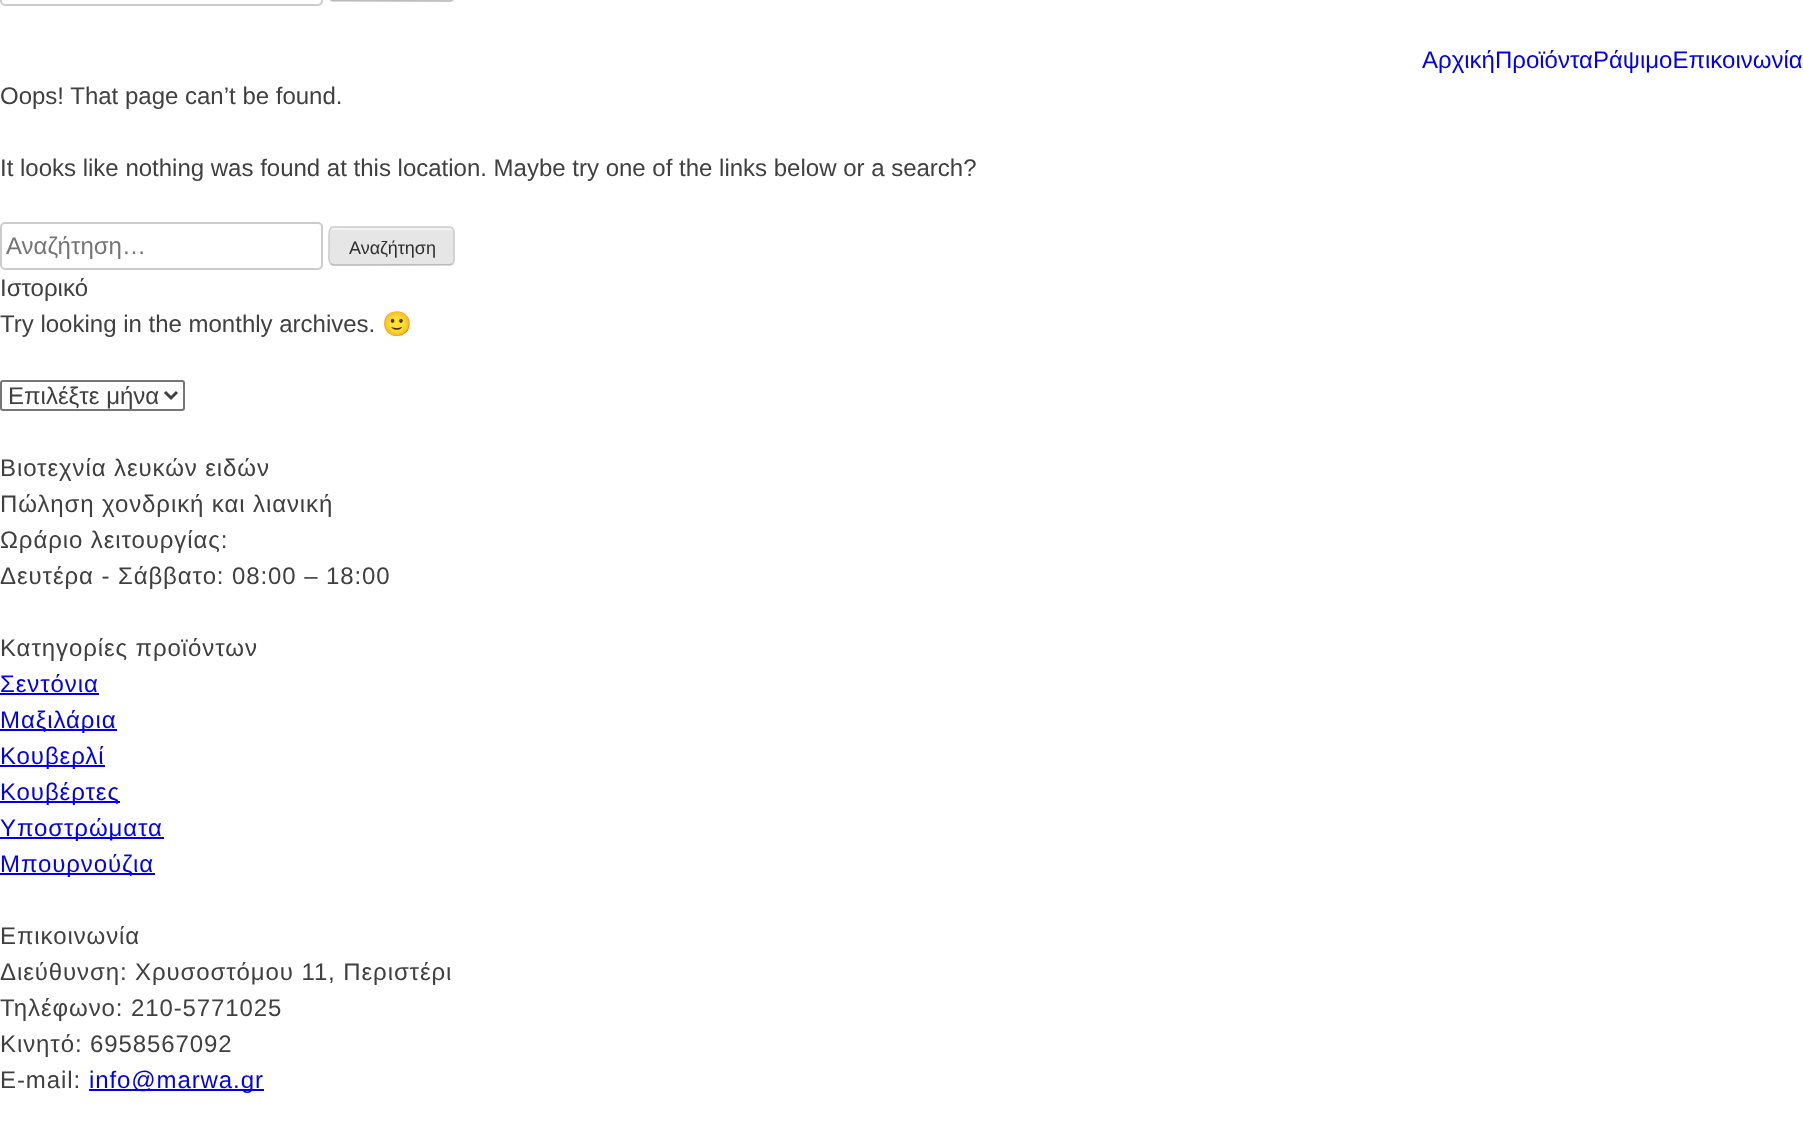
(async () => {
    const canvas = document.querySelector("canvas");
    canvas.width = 1803;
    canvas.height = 1125;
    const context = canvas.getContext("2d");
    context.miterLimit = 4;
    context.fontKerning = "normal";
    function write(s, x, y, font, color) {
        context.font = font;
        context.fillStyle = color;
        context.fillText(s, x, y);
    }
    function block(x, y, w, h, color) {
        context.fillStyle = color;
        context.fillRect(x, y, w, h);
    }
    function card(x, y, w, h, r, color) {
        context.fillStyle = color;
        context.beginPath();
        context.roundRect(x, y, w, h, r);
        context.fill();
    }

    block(0, 0, 1803, 1125, "rgb(255, 255, 255)");
    context.beginPath();
    context.roundRect(1, -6, 321, 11, 4);
    context.strokeStyle = "rgb(204, 204, 204)";
    context.lineWidth = 2;
    context.stroke();
    card(329, -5, 126, 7, 5, "rgb(230, 230, 230)");
    context.beginPath();
    context.moveTo(452.5, -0.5);
    context.lineTo(450, 1);
    context.lineTo(332.5, 0.5);
    context.lineTo(330.5, -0.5);
    context.strokeStyle = "rgb(187, 187, 187)";
    context.lineWidth = 1.5;
    context.stroke();
    write("ΑρχικήΠροϊόνταΡάψιμοΕπικοινωνία", 1422, 68, "24px Liberation Sans", "rgb(0, 0, 238)");
    write("Oops! That page can’t be found.", 0, 104, "24px Liberation Sans", "rgb(64, 64, 64)");
    write("It looks like nothing was found at this location. Maybe try one of the links below or a search?", 0, 176, "24px Liberation Sans", "rgb(64, 64, 64)");
    context.beginPath();
    context.roundRect(1, 223, 321, 46, 4);
    context.strokeStyle = "rgb(204, 204, 204)";
    context.lineWidth = 2;
    context.stroke();
    write("Αναζήτηση…", 6, 254, "24px Liberation Sans", "rgb(117, 117, 117)");
    card(329, 227, 126, 39, 5, "rgb(230, 230, 230)");
    context.fillStyle = "rgb(243, 243, 243)";
    context.beginPath();
    context.moveTo(333, 230);
    context.lineTo(450, 230);
    context.bezierCurveTo(452, 230, 453, 231, 453, 232);
    context.bezierCurveTo(453, 230, 452, 228, 450, 228);
    context.lineTo(352, 228);
    context.bezierCurveTo(352, 228, 330, 223, 330, 232);
    context.bezierCurveTo(330, 231, 331, 230, 333, 230);
    context.closePath();
    context.fill();
    context.beginPath();
    context.moveTo(452.5, 263.5);
    context.lineTo(450.5, 264.5);
    context.lineTo(352.5, 265);
    context.lineTo(333, 265);
    context.lineTo(330.5, 263.5);
    context.strokeStyle = "rgb(187, 187, 187)";
    context.lineWidth = 1.5;
    context.stroke();
    context.beginPath();
    context.moveTo(330.5, 263.5);
    context.bezierCurveTo(328, 261, 329, 253.5, 329, 251);
    context.lineTo(329, 236);
    context.bezierCurveTo(329, 233, 328.5, 227.5, 333, 227);
    context.lineTo(450, 227);
    context.bezierCurveTo(454.5, 227.5, 454, 233, 454, 236);
    context.lineTo(454, 251);
    context.bezierCurveTo(454, 253.5, 455, 261, 452.5, 263.5);
    context.strokeStyle = "rgb(204, 204, 204)";
    context.stroke();
    write("Αναζήτηση", 349, 254, "18px Liberation Sans", "rgb(46, 46, 46)");
    write("Ιστορικό", 0, 296, "24px Liberation Sans", "rgb(64, 64, 64)");
    write("Try looking in the monthly archives.", 0, 332, "24px Liberation Sans", "rgb(64, 64, 64)");
    write("🙂", 382, 332, "24px Noto Color Emoji", "rgb(64, 64, 64)");
    context.beginPath();
    context.roundRect(1, 381, 183, 29, 2);
    context.strokeStyle = "rgb(118, 118, 118)";
    context.lineWidth = 2;
    context.stroke();
    context.beginPath();
    context.moveTo(165, 392);
    context.lineTo(171, 398);
    context.lineTo(177, 392);
    context.strokeStyle = "rgb(64, 64, 64)";
    context.lineWidth = 3;
    context.stroke();
    write("Επιλέξτε μήνα", 8, 404, "24px Liberation Sans", "rgb(64, 64, 64)");
    context.letterSpacing = "0.9px";
    write("Βιοτεχνία λευκών ειδών", 0, 476, "24px Liberation Sans", "rgb(64, 64, 64)");
    write("Πώληση χονδρική και λιανική", 0, 512, "24px Liberation Sans", "rgb(64, 64, 64)");
    write("Ωράριο λειτουργίας:", 0, 548, "24px Liberation Sans", "rgb(64, 64, 64)");
    write("Δευτέρα - Σάββατο: 08:00 – 18:00", 0, 584, "24px Liberation Sans", "rgb(64, 64, 64)");
    write("Κατηγορίες προϊόντων", 0, 656, "24px Liberation Sans", "rgb(64, 64, 64)");
    write("Σεντόνια", 0, 692, "24px Liberation Sans", "rgb(0, 0, 238)");
    block(0, 693, 99, 2, "rgb(0, 0, 238)");
    block(0, 729, 117, 2, "rgb(0, 0, 238)");
    write("Μαξιλάρια", 0, 728, "24px Liberation Sans", "rgb(0, 0, 238)");
    block(0, 765, 105, 2, "rgb(0, 0, 238)");
    write("Κουβερλί", 0, 764, "24px Liberation Sans", "rgb(0, 0, 238)");
    block(0, 801, 120, 2, "rgb(0, 0, 238)");
    write("Κουβέρτες", 0, 800, "24px Liberation Sans", "rgb(0, 0, 238)");
    block(0, 837, 164, 2, "rgb(0, 0, 238)");
    write("Υποστρώματα", 0, 836, "24px Liberation Sans", "rgb(0, 0, 238)");
    block(0, 873, 155, 2, "rgb(0, 0, 238)");
    write("Μπουρνούζια", 0, 872, "24px Liberation Sans", "rgb(0, 0, 238)");
    write("Επικοινωνία", 0, 944, "24px Liberation Sans", "rgb(64, 64, 64)");
    write("Διεύθυνση: Χρυσοστόμου 11, Περιστέρι", 0, 980, "24px Liberation Sans", "rgb(64, 64, 64)");
    write("Τηλέφωνο: 210-5771025", 0, 1016, "24px Liberation Sans", "rgb(64, 64, 64)");
    write("Κινητό: 6958567092", 0, 1052, "24px Liberation Sans", "rgb(64, 64, 64)");
    write("E-mail:", 0, 1088, "24px Liberation Sans", "rgb(64, 64, 64)");
    block(89, 1089, 175, 2, "rgb(0, 0, 238)");
    write("info@marwa.gr", 89, 1088, "24px Liberation Sans", "rgb(0, 0, 238)");
})();
